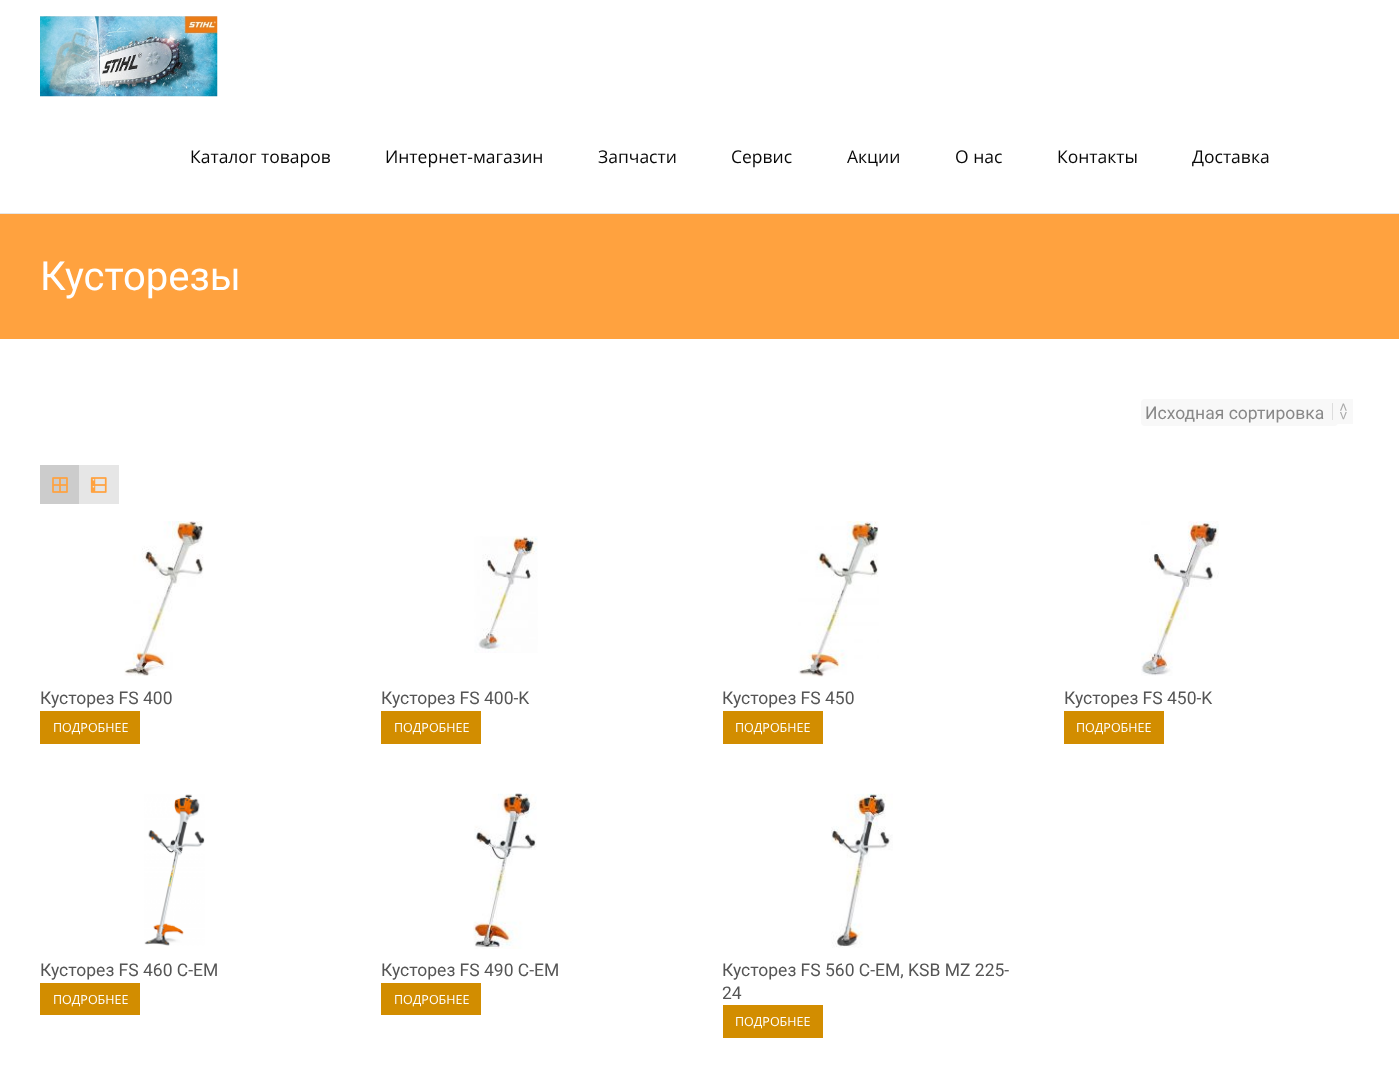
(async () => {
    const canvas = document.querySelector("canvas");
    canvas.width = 1399;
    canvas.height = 1068;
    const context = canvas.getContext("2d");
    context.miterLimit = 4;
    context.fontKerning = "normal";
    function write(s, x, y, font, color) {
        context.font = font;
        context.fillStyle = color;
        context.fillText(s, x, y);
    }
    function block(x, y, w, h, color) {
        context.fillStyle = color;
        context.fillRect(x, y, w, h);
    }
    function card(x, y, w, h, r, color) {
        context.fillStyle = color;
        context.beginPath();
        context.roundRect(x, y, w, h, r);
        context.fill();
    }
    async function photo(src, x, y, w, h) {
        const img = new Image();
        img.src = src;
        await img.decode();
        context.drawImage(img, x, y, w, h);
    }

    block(0, 0, 1399, 1068, "rgb(255, 255, 255)");
    block(0, 213, 1399, 1, "rgb(231, 231, 231)");
    await photo("media/1.png", 40, 16, 178, 81);
    write("Каталог товаров", 190, 163, "17.5px Open Sans", "rgb(8, 8, 8)");
    write("Интернет-магазин", 385, 163, "17.5px Open Sans", "rgb(8, 8, 8)");
    write("Запчасти", 598, 163, "17.5px Open Sans", "rgb(8, 8, 8)");
    write("Сервис", 731, 163, "17.5px Open Sans", "rgb(8, 8, 8)");
    write("Акции", 847, 163, "17.5px Open Sans", "rgb(8, 8, 8)");
    write("О нас", 955, 163, "17.5px Open Sans", "rgb(8, 8, 8)");
    write("Контакты", 1057, 163, "17.5px Open Sans", "rgb(8, 8, 8)");
    write("Доставка", 1192, 163, "17.5px Open Sans", "rgb(8, 8, 8)");
    block(0, 214, 1399, 125, "rgb(255, 162, 63)");
    write("Кусторезы", 40, 290, "40px Roboto", "rgb(255, 255, 255)");
    card(1141, 399, 197, 27, 4, "rgb(248, 248, 248)");
    block(1336, 399, 17, 25, "rgb(248, 248, 248)");
    write("Исходная сортировка", 1145, 419, "17.5px Roboto", "rgb(136, 136, 136)");
    block(1332, 403, 1, 17, "rgb(221, 221, 221)");
    context.font = "14px DejaVu Sans Mono";
    context.fillStyle = "rgb(170, 170, 170)";
    context.save();
    context.translate(1339, 403);
    context.rotate(90 * Math.PI / 180);
    context.fillText("<>", 0, 0);
    context.restore();
    block(40, 465, 39, 39, "rgb(204, 204, 204)");
    await photo("media/2.png", 52, 477, 16, 16);
    block(79, 465, 40, 39, "rgb(230, 230, 230)");
    await photo("media/3.png", 90, 477, 17, 16);
    await photo("media/4.png", 124, 521, 80, 155);
    write("Кусторез FS 400", 40, 704, "17.5px Roboto", "rgb(85, 85, 85)");
    block(40, 711, 100, 33, "rgb(210, 141, 0)");
    write("ПОДРОБНЕЕ", 53, 732, "12.5px Open Sans", "rgb(255, 255, 255)");
    await photo("media/5.png", 474, 536, 64, 117);
    write("Кусторез FS 400-K", 381, 704, "17.5px Roboto", "rgb(85, 85, 85)");
    block(381, 711, 100, 33, "rgb(210, 141, 0)");
    write("ПОДРОБНЕЕ", 394, 732, "12.5px Open Sans", "rgb(255, 255, 255)");
    await photo("media/6.png", 798, 521, 81, 156);
    write("Кусторез FS 450", 722, 704, "17.5px Roboto", "rgb(85, 85, 85)");
    block(723, 711, 100, 33, "rgb(210, 141, 0)");
    write("ПОДРОБНЕЕ", 735, 732, "12.5px Open Sans", "rgb(255, 255, 255)");
    await photo("media/7.png", 1141, 521, 78, 155);
    write("Кусторез FS 450-K", 1064, 704, "17.5px Roboto", "rgb(85, 85, 85)");
    block(1064, 711, 100, 33, "rgb(210, 141, 0)");
    write("ПОДРОБНЕЕ", 1076, 732, "12.5px Open Sans", "rgb(255, 255, 255)");
    await photo("media/8.png", 144, 794, 61, 152);
    write("Кусторез FS 460 C-EM", 40, 976, "17.5px Roboto", "rgb(85, 85, 85)");
    block(40, 983, 100, 32, "rgb(210, 141, 0)");
    write("ПОДРОБНЕЕ", 53, 1004, "12.5px Open Sans", "rgb(255, 255, 255)");
    await photo("media/9.png", 473, 793, 64, 156);
    write("Кусторез FS 490 C-EM", 381, 976, "17.5px Roboto", "rgb(85, 85, 85)");
    block(381, 983, 100, 32, "rgb(210, 141, 0)");
    write("ПОДРОБНЕЕ", 394, 1004, "12.5px Open Sans", "rgb(255, 255, 255)");
    await photo("media/10.png", 831, 793, 62, 155);
    write("Кусторез FS 560 C-EM, KSB MZ 225-", 722, 976, "17.5px Roboto", "rgb(85, 85, 85)");
    write("24", 722, 999, "17.5px Roboto", "rgb(85, 85, 85)");
    block(723, 1005, 100, 33, "rgb(210, 141, 0)");
    write("ПОДРОБНЕЕ", 735, 1026, "12.5px Open Sans", "rgb(255, 255, 255)");
})();
